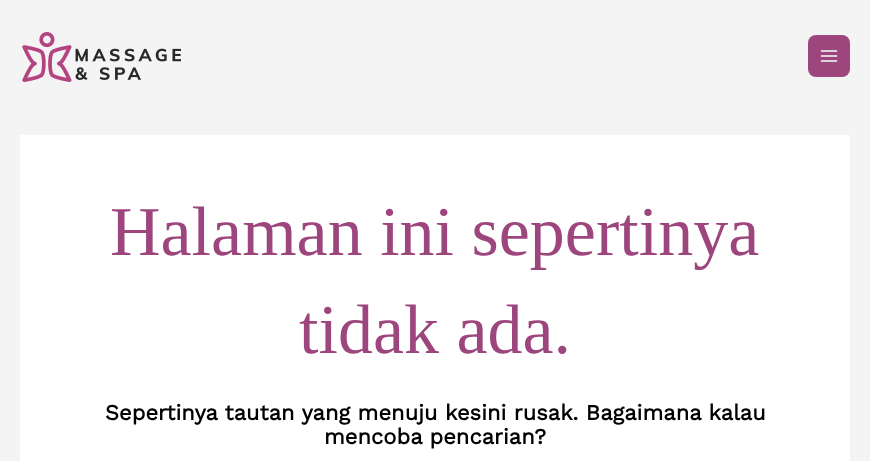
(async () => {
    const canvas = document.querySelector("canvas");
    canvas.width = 870;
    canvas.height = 461;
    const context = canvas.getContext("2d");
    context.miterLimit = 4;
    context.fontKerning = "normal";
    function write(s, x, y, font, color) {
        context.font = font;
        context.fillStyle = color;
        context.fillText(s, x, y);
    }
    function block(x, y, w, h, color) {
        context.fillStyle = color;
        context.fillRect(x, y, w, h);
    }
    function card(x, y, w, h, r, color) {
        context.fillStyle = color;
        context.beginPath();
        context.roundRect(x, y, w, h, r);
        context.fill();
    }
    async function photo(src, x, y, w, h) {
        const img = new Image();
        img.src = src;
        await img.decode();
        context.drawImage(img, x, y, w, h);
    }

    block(0, 0, 870, 461, "rgb(244, 244, 244)");
    await photo("media/1.png", 22, 32, 159, 50);
    card(808, 35, 42, 42, 8, "rgb(157, 70, 126)");
    await photo("media/2.png", 820, 50, 18, 12);
    block(20, 135, 830, 326, "rgb(255, 255, 255)");
    write("Halaman ini sepertinya", 110, 255, "70px Liberation Serif", "rgb(157, 70, 126)");
    write("tidak ada.", 299, 353, "70px Liberation Serif", "rgb(157, 70, 126)");
    write("Sepertinya tautan yang menuju kesini rusak. Bagaimana kalau", 105, 420, "bold 21.9px Work Sans", "rgb(0, 0, 0)");
    write("mencoba pencarian?", 324, 444, "bold 21.9px Work Sans", "rgb(0, 0, 0)");
})();
